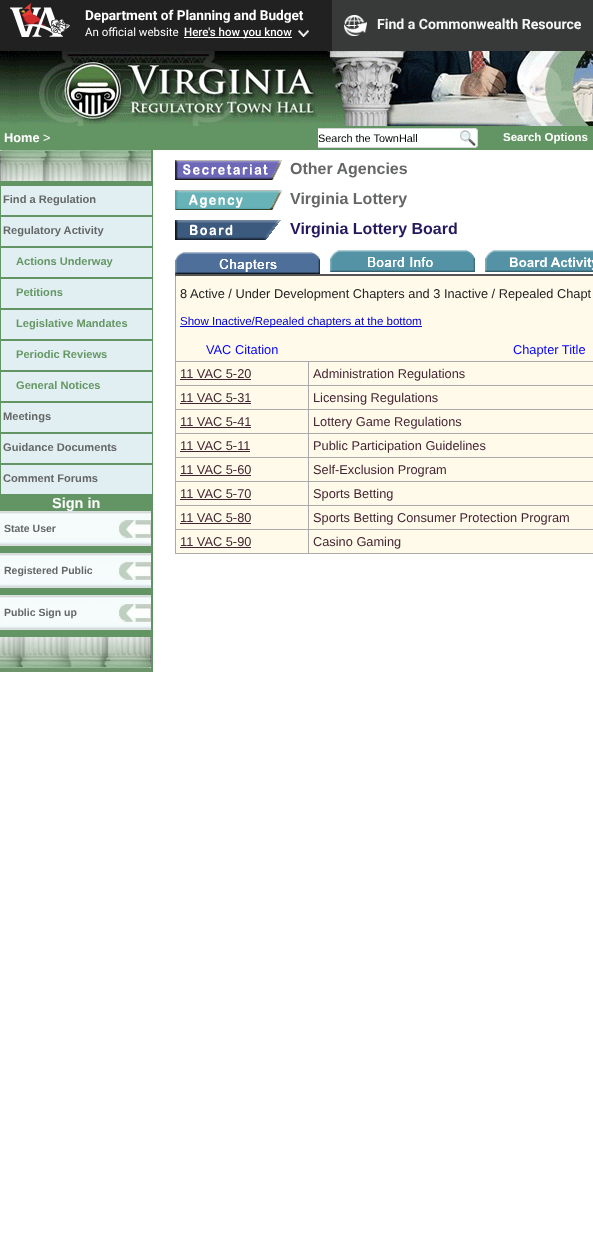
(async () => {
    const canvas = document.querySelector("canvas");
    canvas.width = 593;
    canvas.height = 1260;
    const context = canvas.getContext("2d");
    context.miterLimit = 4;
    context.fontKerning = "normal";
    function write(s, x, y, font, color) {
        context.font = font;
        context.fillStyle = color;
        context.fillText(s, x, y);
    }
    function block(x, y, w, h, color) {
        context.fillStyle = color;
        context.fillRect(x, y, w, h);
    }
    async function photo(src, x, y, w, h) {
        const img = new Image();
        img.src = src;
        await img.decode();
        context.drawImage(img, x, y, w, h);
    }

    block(0, 0, 593, 1260, "rgb(255, 255, 255)");
    block(0, 0, 332, 51, "rgb(33, 33, 33)");
    await photo("media/1.png", 10, 3, 60, 34);
    write("Department of Planning and Budget", 85, 20, "bold 13.6px Roboto", "rgb(255, 255, 255)");
    write("An official website", 85, 36, "11.5px Roboto", "rgb(255, 255, 255)");
    block(184, 37, 108, 1, "rgb(255, 255, 255)");
    write("Here's how you know", 184, 36, "500 11.5px Roboto", "rgb(255, 255, 255)");
    await photo("media/2.png", 298, 30, 11, 7);
    block(332, 0, 261, 51, "rgb(56, 57, 57)");
    await photo("media/3.png", 344, 15, 23, 21);
    write("Find a Commonwealth Resource", 377, 29, "bold 14.1px Roboto", "rgb(246, 246, 246)");
    await photo("media/4.png", 0, 51, 593, 75);
    block(0, 126, 593, 24, "rgb(99, 149, 100)");
    write("Home", 4, 142, "bold 12.8px Liberation Sans", "rgb(255, 255, 255)");
    write(">", 43, 142, "12.8px Liberation Sans", "rgb(255, 255, 255)");
    block(318, 129, 140, 18, "rgb(254, 255, 255)");
    block(318, 128, 140, 1, "rgb(213, 213, 213)");
    block(318, 147, 140, 1, "rgb(213, 213, 213)");
    write("Search the TownHall", 318, 142, "10.9px Liberation Sans", "rgb(0, 0, 0)");
    await photo("media/5.png", 458, 128, 20, 20);
    write("Search Options", 503, 141, "bold 11.5px Liberation Sans", "rgb(255, 255, 255)");
    block(0, 150, 153, 522, "rgb(99, 149, 100)");
    await photo("media/6.png", 0, 150, 151, 31);
    block(1, 186, 151, 29, "rgb(225, 239, 242)");
    write("Find a Regulation", 3, 203, "bold 11.1px Liberation Sans", "rgb(101, 103, 102)");
    block(1, 217, 151, 29, "rgb(225, 239, 242)");
    write("Regulatory Activity", 3, 234, "bold 11.1px Liberation Sans", "rgb(101, 103, 102)");
    block(1, 248, 151, 29, "rgb(225, 239, 242)");
    write("Actions Underway", 16, 265, "bold 11.1px Liberation Sans", "rgb(101, 151, 100)");
    block(1, 279, 151, 29, "rgb(225, 239, 242)");
    write("Petitions", 16, 296, "bold 11.1px Liberation Sans", "rgb(101, 151, 100)");
    block(1, 310, 151, 29, "rgb(225, 239, 242)");
    write("Legislative Mandates", 16, 327, "bold 11.1px Liberation Sans", "rgb(101, 151, 100)");
    block(1, 341, 151, 29, "rgb(225, 239, 242)");
    write("Periodic Reviews", 16, 358, "bold 11.1px Liberation Sans", "rgb(101, 151, 100)");
    block(1, 372, 151, 29, "rgb(225, 239, 242)");
    write("General Notices", 16, 389, "bold 11.1px Liberation Sans", "rgb(101, 151, 100)");
    block(1, 403, 151, 29, "rgb(225, 239, 242)");
    write("Meetings", 3, 420, "bold 11.1px Liberation Sans", "rgb(101, 103, 102)");
    block(1, 434, 151, 29, "rgb(225, 239, 242)");
    write("Guidance Documents", 3, 451, "bold 11.1px Liberation Sans", "rgb(101, 103, 102)");
    block(1, 465, 151, 29, "rgb(225, 239, 242)");
    write("Comment Forums", 3, 482, "bold 11.1px Liberation Sans", "rgb(101, 103, 102)");
    await photo("media/7.png", 0, 511, 151, 35);
    write("Sign in", 52, 508, "bold 14.5px Liberation Sans", "rgb(255, 255, 255)");
    write("State User", 4, 532, "bold 10.5px Liberation Sans", "rgb(101, 103, 102)");
    await photo("media/7.png", 0, 553, 151, 35);
    write("Registered Public", 4, 574, "bold 10.5px Liberation Sans", "rgb(101, 103, 102)");
    await photo("media/7.png", 0, 595, 151, 35);
    write("Public Sign up", 4, 616, "bold 10.5px Liberation Sans", "rgb(101, 103, 102)");
    await photo("media/8.png", 0, 637, 151, 35);
    await photo("media/9.png", 175, 160, 107, 20);
    write("Other Agencies", 290, 174, "bold 16px Liberation Sans", "rgb(101, 103, 102)");
    await photo("media/10.png", 175, 190, 107, 20);
    write("Virginia Lottery", 290, 204, "bold 16px Liberation Sans", "rgb(101, 103, 102)");
    await photo("media/11.png", 175, 220, 106, 20);
    write("Virginia Lottery Board", 290, 234, "bold 16px Liberation Sans", "rgb(37, 24, 93)");
    await photo("media/12.png", 175, 252, 145, 22);
    await photo("media/13.png", 330, 250, 145, 22);
    await photo("media/14.png", 485, 250, 108, 22);
    block(176, 276, 417, 277, "rgb(255, 250, 234)");
    block(308, 361, 285, 1, "rgb(170, 170, 170)");
    block(308, 385, 285, 1, "rgb(170, 170, 170)");
    block(308, 409, 285, 1, "rgb(170, 170, 170)");
    block(308, 433, 285, 1, "rgb(170, 170, 170)");
    block(308, 457, 285, 1, "rgb(170, 170, 170)");
    block(308, 481, 285, 1, "rgb(170, 170, 170)");
    block(308, 505, 285, 1, "rgb(170, 170, 170)");
    block(308, 529, 285, 1, "rgb(170, 170, 170)");
    block(308, 553, 285, 1, "rgb(170, 170, 170)");
    block(308, 529, 1, 25, "rgb(170, 170, 170)");
    block(175, 529, 134, 1, "rgb(170, 170, 170)");
    block(308, 505, 1, 25, "rgb(170, 170, 170)");
    block(175, 505, 134, 1, "rgb(170, 170, 170)");
    block(308, 481, 1, 25, "rgb(170, 170, 170)");
    block(175, 481, 134, 1, "rgb(170, 170, 170)");
    block(308, 457, 1, 25, "rgb(170, 170, 170)");
    block(175, 457, 134, 1, "rgb(170, 170, 170)");
    block(308, 433, 1, 25, "rgb(170, 170, 170)");
    block(175, 433, 134, 1, "rgb(170, 170, 170)");
    block(308, 409, 1, 25, "rgb(170, 170, 170)");
    block(175, 409, 134, 1, "rgb(170, 170, 170)");
    block(308, 385, 1, 25, "rgb(170, 170, 170)");
    block(175, 385, 134, 1, "rgb(170, 170, 170)");
    block(308, 361, 1, 25, "rgb(170, 170, 170)");
    block(175, 361, 134, 1, "rgb(170, 170, 170)");
    block(175, 553, 134, 1, "rgb(170, 170, 170)");
    block(175, 529, 1, 25, "rgb(170, 170, 170)");
    block(175, 505, 1, 25, "rgb(170, 170, 170)");
    block(175, 481, 1, 25, "rgb(170, 170, 170)");
    block(175, 457, 1, 25, "rgb(170, 170, 170)");
    block(175, 433, 1, 25, "rgb(170, 170, 170)");
    block(175, 409, 1, 25, "rgb(170, 170, 170)");
    block(175, 385, 1, 25, "rgb(170, 170, 170)");
    block(175, 275, 1, 111, "rgb(170, 170, 170)");
    block(175, 274, 418, 2, "rgb(85, 85, 85)");
    write("8 Active / Under Development Chapters and 3 Inactive / Repealed Chapt", 180, 298, "12.8px Liberation Sans", "rgb(34, 34, 34)");
    block(180, 326, 242, 1, "rgb(0, 0, 205)");
    write("Show Inactive/Repealed chapters at the bottom", 180, 325, "11.5px Liberation Sans", "rgb(0, 0, 205)");
    write("VAC Citation", 206, 354, "12.8px Liberation Sans", "rgb(0, 0, 255)");
    write("Chapter Title", 513, 354, "12.8px Liberation Sans", "rgb(0, 0, 255)");
    write("11 VAC 5‑20", 180, 378, "12.8px Liberation Sans", "rgb(67, 36, 50)");
    block(180, 379, 71, 1, "rgb(67, 36, 50)");
    write("Administration Regulations", 313, 378, "12.8px Liberation Sans", "rgb(67, 36, 50)");
    write("11 VAC 5‑31", 180, 402, "12.8px Liberation Sans", "rgb(67, 36, 50)");
    block(180, 403, 71, 1, "rgb(67, 36, 50)");
    write("Licensing Regulations", 313, 402, "12.8px Liberation Sans", "rgb(67, 36, 50)");
    write("11 VAC 5‑41", 180, 426, "12.8px Liberation Sans", "rgb(67, 36, 50)");
    block(180, 427, 71, 1, "rgb(67, 36, 50)");
    write("Lottery Game Regulations", 313, 426, "12.8px Liberation Sans", "rgb(67, 36, 50)");
    write("11 VAC 5‑11", 180, 450, "12.8px Liberation Sans", "rgb(67, 36, 50)");
    block(180, 451, 70, 1, "rgb(67, 36, 50)");
    write("Public Participation Guidelines", 313, 450, "12.8px Liberation Sans", "rgb(67, 36, 50)");
    write("11 VAC 5‑60", 180, 474, "12.8px Liberation Sans", "rgb(67, 36, 50)");
    block(180, 475, 71, 1, "rgb(67, 36, 50)");
    write("Self-Exclusion Program", 313, 474, "12.8px Liberation Sans", "rgb(67, 36, 50)");
    write("11 VAC 5‑70", 180, 498, "12.8px Liberation Sans", "rgb(67, 36, 50)");
    block(180, 499, 71, 1, "rgb(67, 36, 50)");
    write("Sports Betting", 313, 498, "12.8px Liberation Sans", "rgb(67, 36, 50)");
    write("11 VAC 5‑80", 180, 522, "12.8px Liberation Sans", "rgb(67, 36, 50)");
    block(180, 523, 71, 1, "rgb(67, 36, 50)");
    write("Sports Betting Consumer Protection Program", 313, 522, "12.8px Liberation Sans", "rgb(67, 36, 50)");
    write("11 VAC 5‑90", 180, 546, "12.8px Liberation Sans", "rgb(67, 36, 50)");
    block(180, 547, 71, 1, "rgb(67, 36, 50)");
    write("Casino Gaming", 313, 546, "12.8px Liberation Sans", "rgb(67, 36, 50)");
})();
